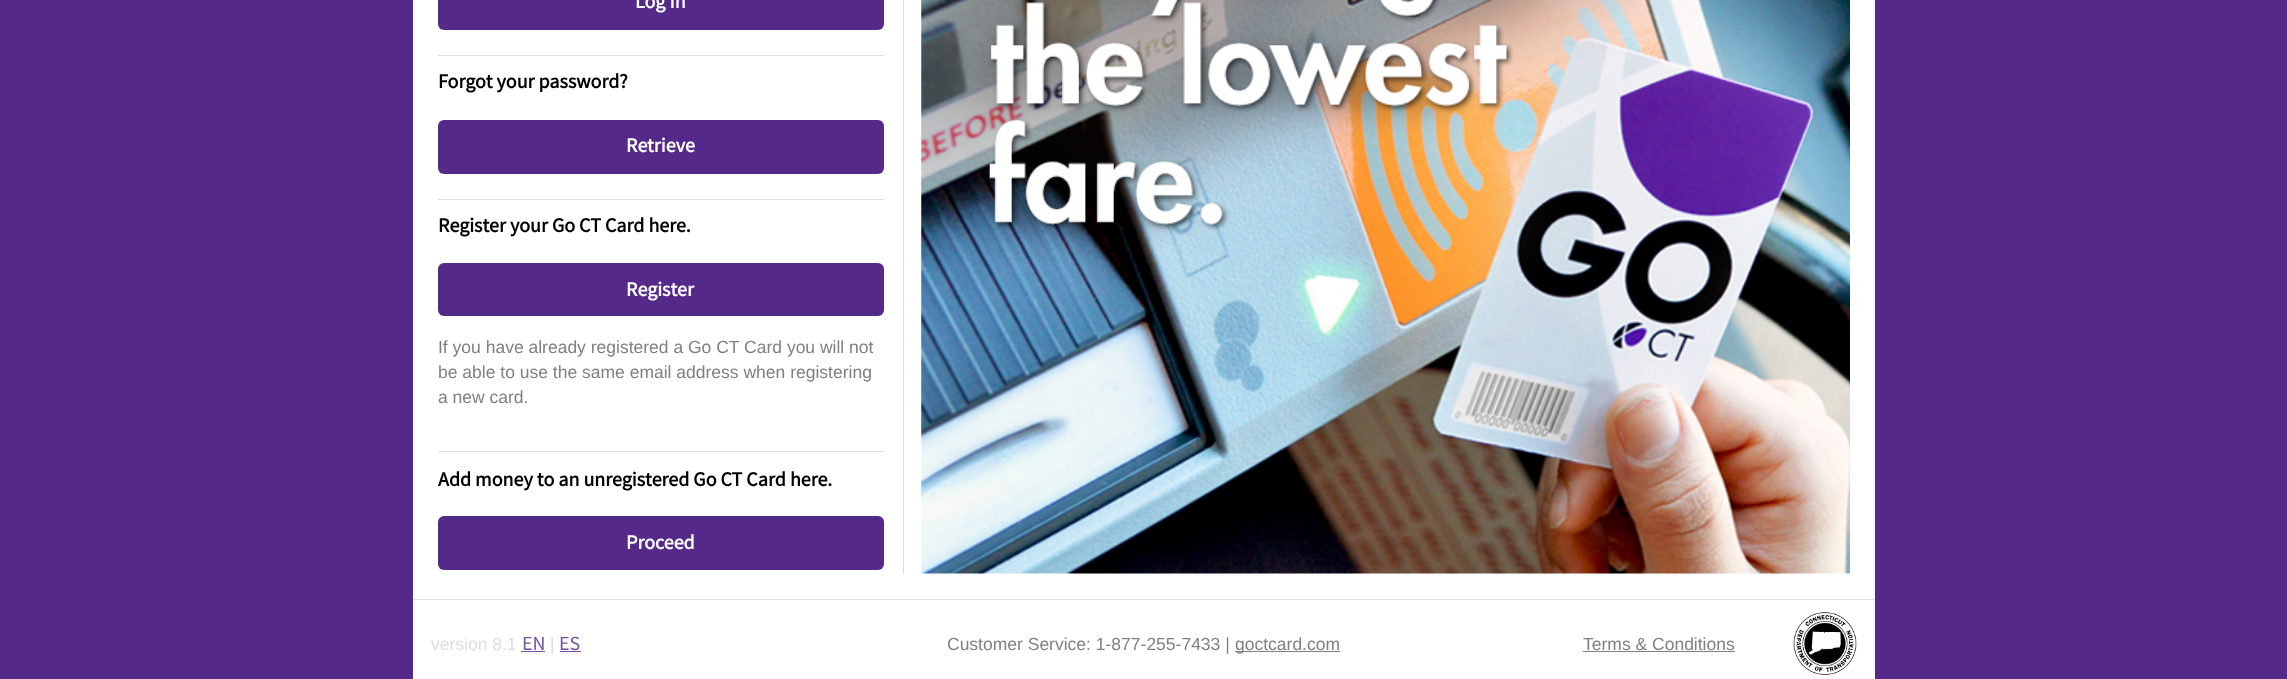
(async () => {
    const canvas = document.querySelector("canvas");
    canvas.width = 2287;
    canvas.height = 679;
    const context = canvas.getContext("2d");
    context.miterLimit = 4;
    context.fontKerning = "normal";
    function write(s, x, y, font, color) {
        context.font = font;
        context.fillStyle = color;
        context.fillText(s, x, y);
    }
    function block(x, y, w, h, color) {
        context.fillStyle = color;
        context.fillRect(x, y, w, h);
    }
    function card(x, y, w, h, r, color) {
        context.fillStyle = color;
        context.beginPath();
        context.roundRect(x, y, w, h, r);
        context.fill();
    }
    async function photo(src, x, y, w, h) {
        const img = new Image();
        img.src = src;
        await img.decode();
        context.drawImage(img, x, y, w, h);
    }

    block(0, 0, 2287, 679, "rgb(84, 41, 137)");
    block(413, 0, 1462, 599, "rgb(255, 255, 255)");
    card(438, -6, 446, 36, 6, "rgb(84, 41, 137)");
    write("Log In", 635, 8, "bold 20px Source Sans Pro", "rgb(255, 255, 255)");
    block(438, 55, 446, 1, "rgb(221, 221, 221)");
    write("Forgot your password?", 438, 88, "bold 20px Source Sans Pro", "rgb(0, 0, 0)");
    card(438, 120, 446, 54, 6, "rgb(84, 41, 137)");
    write("Retrieve", 626, 152, "bold 20px Source Sans Pro", "rgb(255, 255, 255)");
    block(438, 199, 446, 1, "rgb(221, 221, 221)");
    write("Register your Go CT Card here.", 438, 232, "bold 20px Source Sans Pro", "rgb(0, 0, 0)");
    card(438, 263, 446, 53, 6, "rgb(84, 41, 137)");
    write("Register", 626, 296, "bold 20px Source Sans Pro", "rgb(255, 255, 255)");
    write("If you have already registered a Go CT Card you will not", 438, 353, "17.5px Liberation Sans", "rgb(128, 128, 128)");
    write("be able to use the same email address when registering", 438, 378, "17.5px Liberation Sans", "rgb(128, 128, 128)");
    write("a new card.", 438, 403, "17.5px Liberation Sans", "rgb(128, 128, 128)");
    block(438, 451, 446, 1, "rgb(221, 221, 221)");
    write("Add money to an unregistered Go CT Card here.", 438, 486, "bold 20px Source Sans Pro", "rgb(0, 0, 0)");
    card(438, 516, 446, 54, 6, "rgb(84, 41, 137)");
    write("Proceed", 626, 549, "bold 20px Source Sans Pro", "rgb(255, 255, 255)");
    block(903, 0, 1, 574, "rgb(221, 221, 221)");
    await photo("media/1.png", 921, 0, 929, 574);
    block(413, 600, 1462, 79, "rgb(255, 255, 255)");
    block(413, 599, 1462, 1, "rgb(221, 221, 221)");
    write("version 8.1", 431, 650, "17.5px Liberation Sans", "rgb(221, 221, 221)");
    write("EN", 522, 650, "20px Source Sans Pro", "rgb(117, 81, 159)");
    block(521, 651, 24, 1, "rgb(117, 81, 159)");
    write("|", 550, 650, "17.5px Liberation Sans", "rgb(221, 221, 221)");
    write("ES", 559, 650, "20px Source Sans Pro", "rgb(117, 81, 159)");
    block(560, 651, 21, 1, "rgb(117, 81, 159)");
    write("Customer Service: 1-877-255-7433 |", 947, 650, "17.5px Liberation Sans", "rgb(128, 128, 128)");
    block(1235, 651, 105, 1, "rgb(128, 128, 128)");
    write("goctcard.com", 1235, 650, "17.5px Liberation Sans", "rgb(128, 128, 128)");
    write("Terms & Conditions", 1583, 650, "17.5px Liberation Sans", "rgb(128, 128, 128)");
    block(1583, 651, 152, 1, "rgb(128, 128, 128)");
    await photo("media/2.png", 1793, 612, 64, 63);
})();
